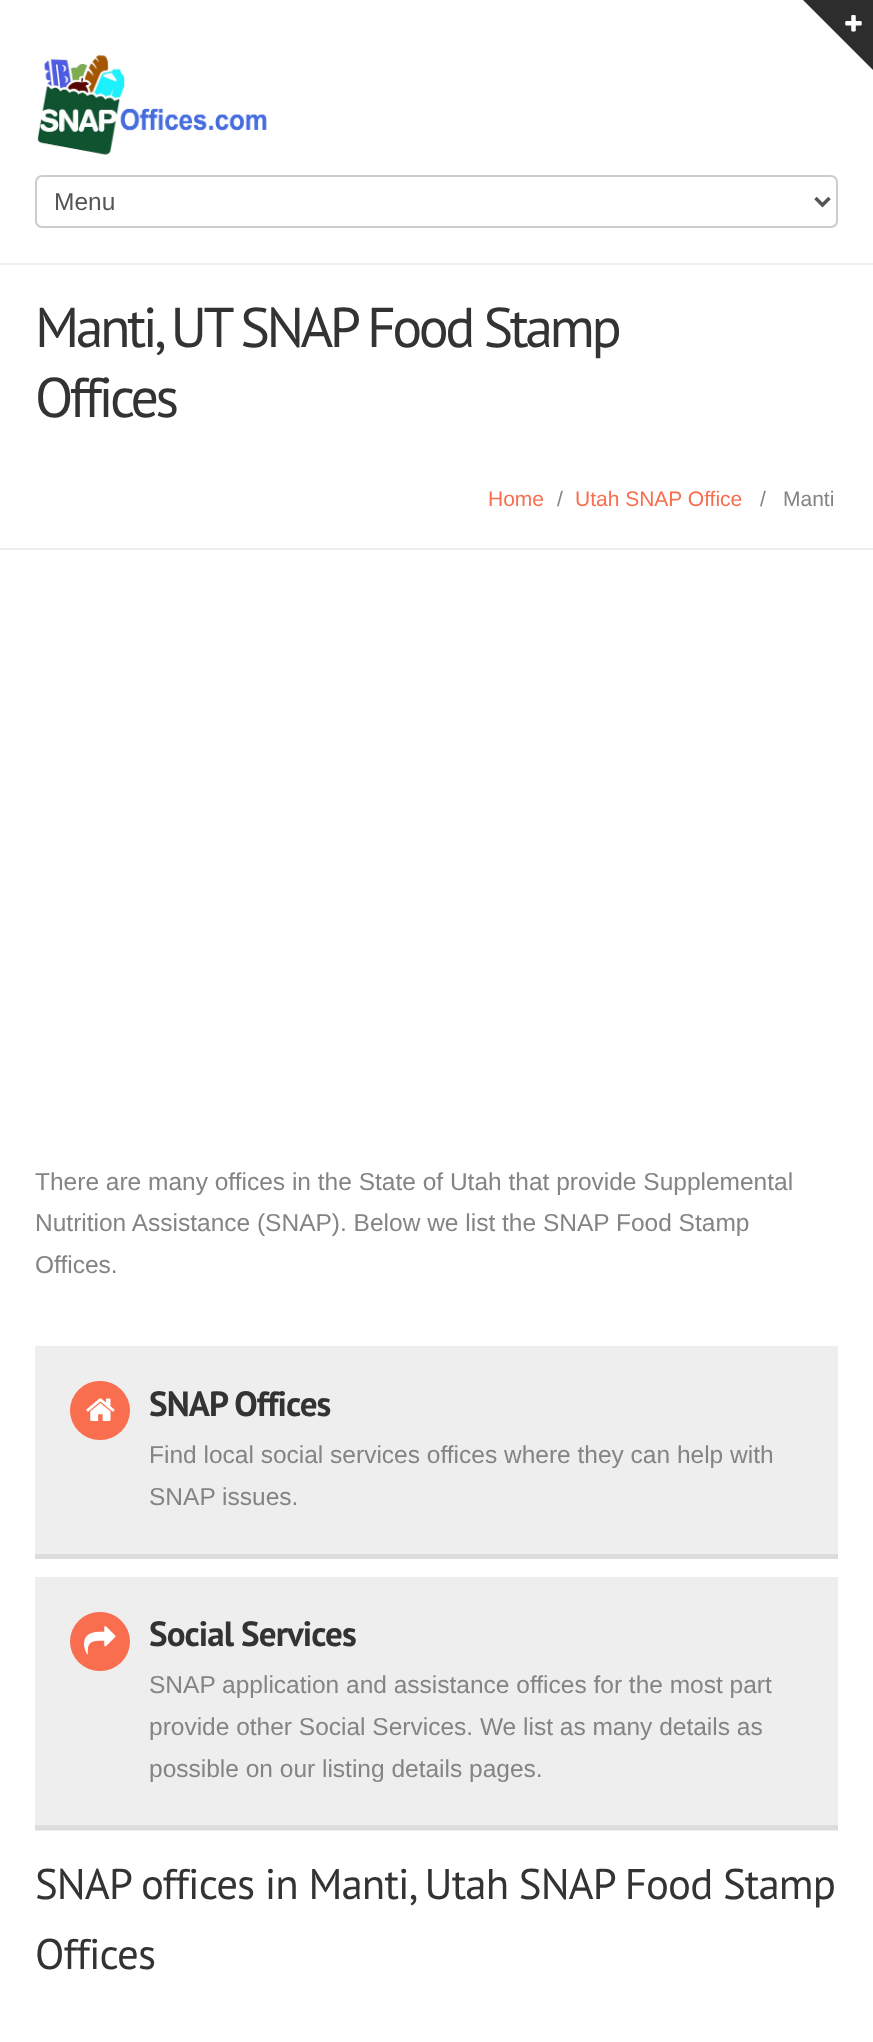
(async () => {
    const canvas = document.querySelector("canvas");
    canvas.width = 873;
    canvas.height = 2042;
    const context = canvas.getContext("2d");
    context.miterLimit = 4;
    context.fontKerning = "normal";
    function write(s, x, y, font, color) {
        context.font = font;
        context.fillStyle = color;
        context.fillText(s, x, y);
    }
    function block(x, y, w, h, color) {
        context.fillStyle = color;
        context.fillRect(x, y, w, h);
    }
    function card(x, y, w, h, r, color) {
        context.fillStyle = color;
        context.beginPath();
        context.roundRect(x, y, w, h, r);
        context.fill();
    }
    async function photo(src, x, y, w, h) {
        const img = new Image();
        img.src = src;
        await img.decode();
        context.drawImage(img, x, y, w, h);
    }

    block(0, 0, 873, 2042, "rgb(255, 255, 255)");
    context.fillStyle = "rgb(45, 45, 45)";
    context.beginPath();
    context.moveTo(873, 0);
    context.lineTo(873, 70);
    context.lineTo(803, 0);
    context.closePath();
    context.fill();
    await photo("media/1.png", 845, 15, 17, 17);
    await photo("media/2.png", 37, 55, 230, 100);
    context.beginPath();
    context.roundRect(36, 176, 801, 51, 6);
    context.strokeStyle = "rgb(204, 204, 204)";
    context.lineWidth = 2;
    context.stroke();
    context.beginPath();
    context.moveTo(815.5, 198);
    context.lineTo(822.5, 205);
    context.lineTo(829.5, 198);
    context.strokeStyle = "rgb(85, 85, 85)";
    context.lineWidth = 3.5;
    context.stroke();
    write("Menu", 54, 210, "24.5px Liberation Sans", "rgb(85, 85, 85)");
    block(0, 263, 873, 2, "rgb(238, 238, 238)");
    block(0, 548, 873, 2, "rgb(238, 238, 238)");
    context.letterSpacing = "-3.5px";
    write("Manti, UT SNAP Food Stamp", 35, 347, "56px PT Sans", "rgb(51, 51, 51)");
    write("Offices", 35, 417, "56px PT Sans", "rgb(51, 51, 51)");
    context.letterSpacing = "0px";
    write("Home", 488, 506, "21px Liberation Sans", "rgb(248, 110, 78)");
    write("/", 557, 506, "21px Liberation Sans", "rgb(132, 132, 132)");
    write("Utah SNAP Office", 575, 506, "21px Liberation Sans", "rgb(248, 110, 78)");
    write("/", 760, 506, "21px Liberation Sans", "rgb(132, 132, 132)");
    write("Manti", 783, 506, "21px Liberation Sans", "rgb(132, 132, 132)");
    write("There are many offices in the State of Utah that provide Supplemental", 35, 1190, "24.5px Liberation Sans", "rgb(132, 132, 132)");
    write("Nutrition Assistance (SNAP). Below we list the SNAP Food Stamp", 35, 1231, "24.5px Liberation Sans", "rgb(132, 132, 132)");
    write("Offices.", 35, 1273, "24.5px Liberation Sans", "rgb(132, 132, 132)");
    block(35, 1346, 803, 208, "rgb(238, 238, 238)");
    block(35, 1554, 803, 5, "rgb(221, 221, 221)");
    card(70, 1381, 60, 59, 29.5, "rgb(248, 110, 78)");
    await photo("media/3.png", 86, 1398, 29, 23);
    context.letterSpacing = "-0.9px";
    write("SNAP Offices", 149, 1416, "bold 35px PT Sans", "rgb(51, 51, 51)");
    context.letterSpacing = "0px";
    write("Find local social services offices where they can help with", 149, 1463, "24.5px Liberation Sans", "rgb(132, 132, 132)");
    write("SNAP issues.", 149, 1505, "24.5px Liberation Sans", "rgb(132, 132, 132)");
    block(35, 1577, 803, 254, "rgb(238, 238, 238)");
    block(35, 1825, 803, 5, "rgb(221, 221, 221)");
    card(70, 1612, 60, 59, 29.5, "rgb(248, 110, 78)");
    await photo("media/4.png", 84, 1626, 32, 29);
    context.letterSpacing = "-0.9px";
    write("Social Services", 149, 1646, "bold 35px PT Sans", "rgb(51, 51, 51)");
    context.letterSpacing = "0px";
    write("SNAP application and assistance offices for the most part", 149, 1693, "24.5px Liberation Sans", "rgb(132, 132, 132)");
    write("provide other Social Services. We list as many details as", 149, 1735, "24.5px Liberation Sans", "rgb(132, 132, 132)");
    write("possible on our listing details pages.", 149, 1777, "24.5px Liberation Sans", "rgb(132, 132, 132)");
    context.letterSpacing = "-0.9px";
    write("SNAP offices in Manti, Utah SNAP Food Stamp", 35, 1899, "42.9px PT Sans", "rgb(51, 51, 51)");
    write("Offices", 35, 1969, "42.9px PT Sans", "rgb(51, 51, 51)");
})();
